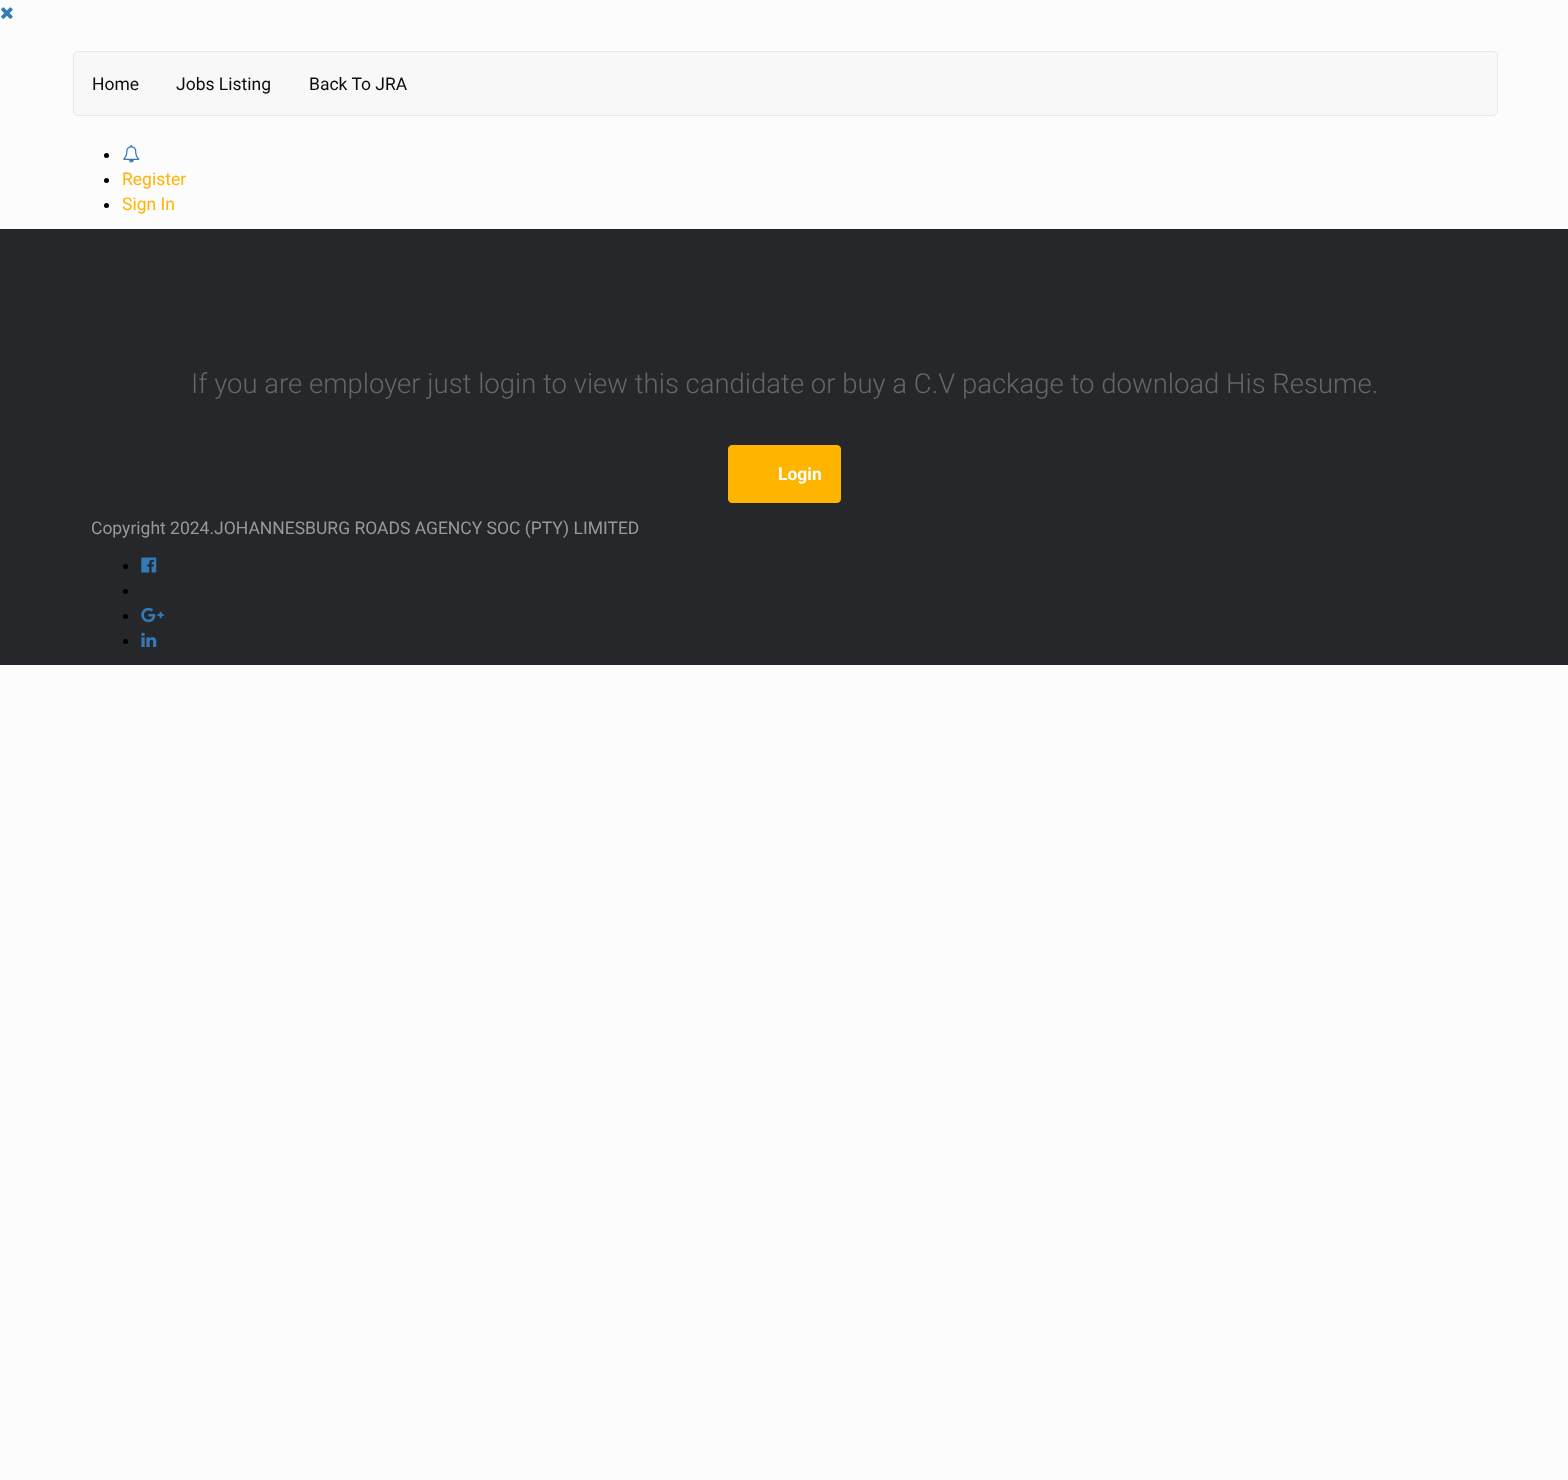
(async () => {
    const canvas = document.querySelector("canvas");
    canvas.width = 1568;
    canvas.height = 1480;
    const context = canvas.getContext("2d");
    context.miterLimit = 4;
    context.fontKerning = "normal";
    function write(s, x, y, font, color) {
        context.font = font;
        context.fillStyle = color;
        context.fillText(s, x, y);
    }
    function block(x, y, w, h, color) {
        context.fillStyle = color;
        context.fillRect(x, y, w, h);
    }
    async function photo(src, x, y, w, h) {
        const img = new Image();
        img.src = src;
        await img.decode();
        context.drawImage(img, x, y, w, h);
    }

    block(0, 0, 1568, 1480, "rgb(252, 252, 252)");
    await photo("media/1.png", 1, 7, 12, 12);
    context.fillStyle = "rgb(248, 248, 248)";
    context.beginPath();
    context.roundRect(73.5, 51.5, 1424, 64, 4.5);
    context.fill();
    context.strokeStyle = "rgb(231, 231, 231)";
    context.stroke();
    write("Home", 92, 90, "17.5px Roboto", "rgb(11, 12, 12)");
    write("Jobs Listing", 176, 90, "17.5px Roboto", "rgb(11, 12, 12)");
    write("Back To JRA", 309, 90, "17.5px Roboto", "rgb(11, 12, 12)");
    context.fillStyle = "rgb(0, 0, 0)";
    context.beginPath();
    context.arc(106.5, 155.5, 2.5, 0, Math.PI * 2);
    context.fill();
    await photo("media/2.png", 123, 145, 17, 18);
    context.beginPath();
    context.arc(106.5, 180.5, 2.5, 0, Math.PI * 2);
    context.fill();
    write("Register", 122, 185, "17.5px Roboto", "rgb(255, 180, 0)");
    context.fillStyle = "rgb(0, 0, 0)";
    context.beginPath();
    context.arc(106.5, 205.5, 2.5, 0, Math.PI * 2);
    context.fill();
    write("Sign In", 122, 210, "17.5px Roboto", "rgb(255, 180, 0)");
    block(0, 229, 1568, 436, "rgb(38, 39, 43)");
    write("If you are employer just login to view this candidate or buy a C.V package to download His Resume.", 191, 393, "300 27.5px Roboto", "rgb(102, 102, 102)");
    context.fillStyle = "rgb(255, 180, 0)";
    context.beginPath();
    context.roundRect(728.5, 445.5, 112, 57, 3.5);
    context.fill();
    context.strokeStyle = "rgb(255, 180, 0)";
    context.stroke();
    write("Login", 778, 480, "bold 17.5px Roboto", "rgb(255, 255, 255)");
    write("Copyright 2024.JOHANNESBURG ROADS AGENCY SOC (PTY) LIMITED", 91, 534, "17.5px Roboto", "rgb(153, 153, 153)");
    context.fillStyle = "rgb(0, 0, 0)";
    context.beginPath();
    context.arc(125.5, 566.5, 2.5, 0, Math.PI * 2);
    context.fill();
    await photo("media/3.png", 141, 557, 16, 16);
    context.beginPath();
    context.arc(125.5, 591.5, 2.5, 0, Math.PI * 2);
    context.fill();
    context.beginPath();
    context.arc(125.5, 616.5, 2.5, 0, Math.PI * 2);
    context.fill();
    await photo("media/4.png", 141, 607, 23, 16);
    context.beginPath();
    context.arc(125.5, 641.5, 2.5, 0, Math.PI * 2);
    context.fill();
    await photo("media/5.png", 141, 632, 16, 15);
})();
